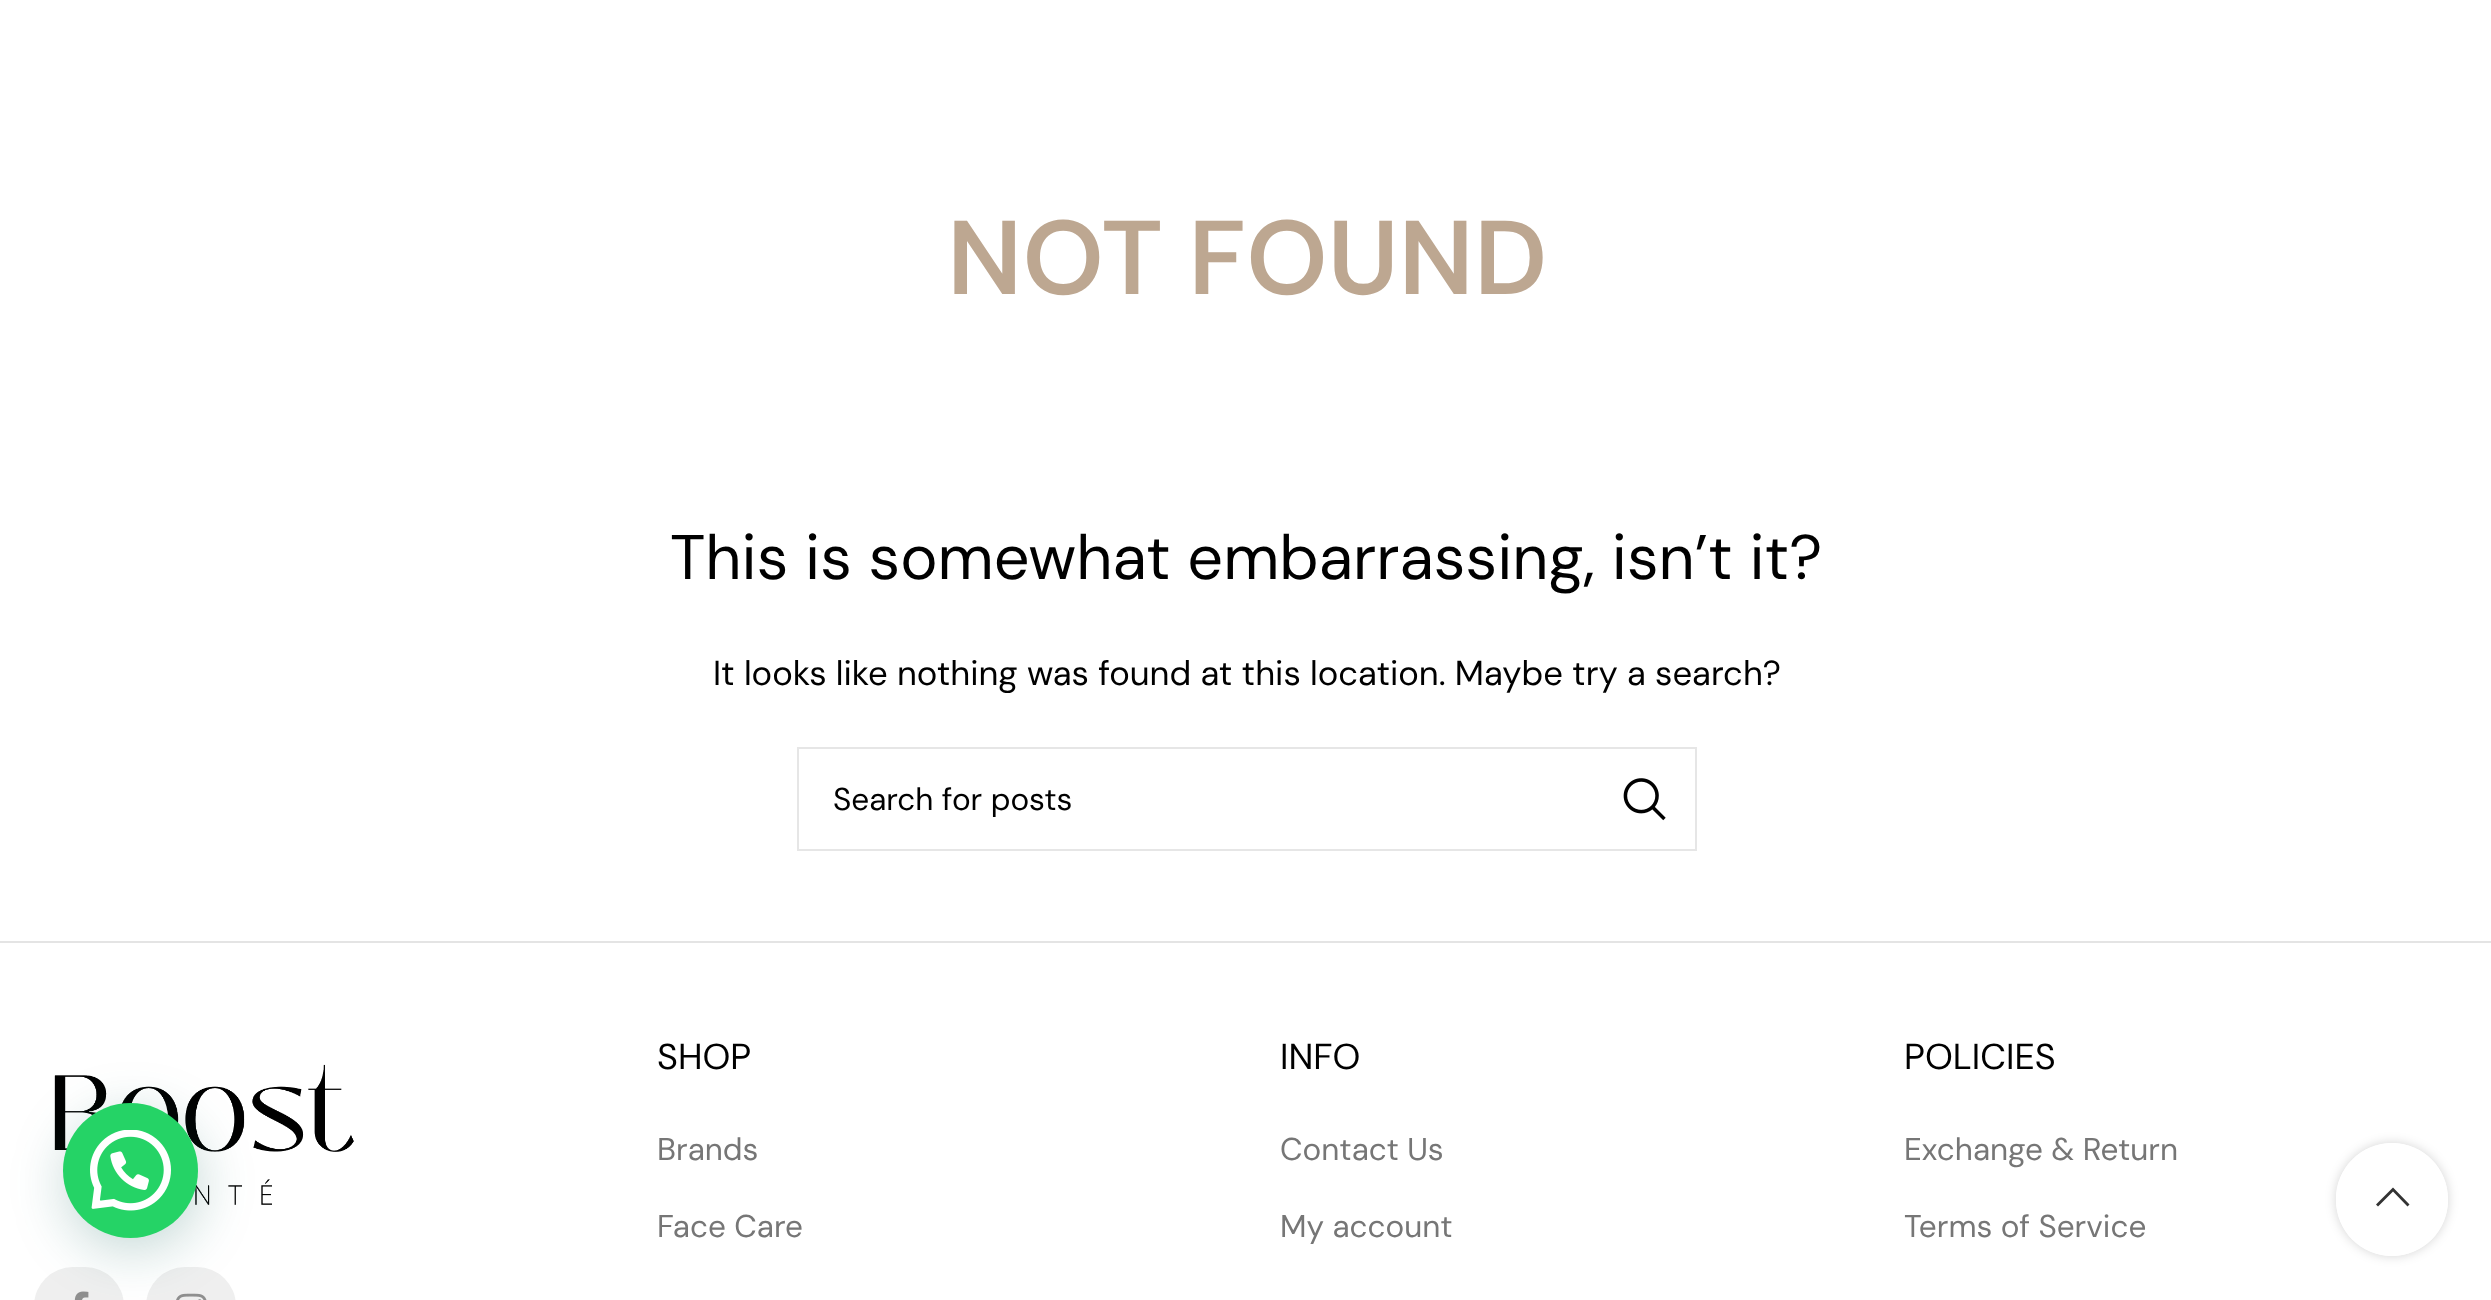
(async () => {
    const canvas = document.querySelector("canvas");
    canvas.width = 2491;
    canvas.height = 1300;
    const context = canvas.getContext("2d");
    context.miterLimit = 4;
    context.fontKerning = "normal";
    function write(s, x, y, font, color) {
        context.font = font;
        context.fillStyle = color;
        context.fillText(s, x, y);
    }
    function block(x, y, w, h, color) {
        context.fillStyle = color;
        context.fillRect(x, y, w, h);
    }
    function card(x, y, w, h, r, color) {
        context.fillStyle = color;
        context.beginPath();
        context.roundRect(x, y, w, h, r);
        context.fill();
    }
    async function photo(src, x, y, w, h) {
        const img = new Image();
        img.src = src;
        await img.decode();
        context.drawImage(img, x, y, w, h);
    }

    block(0, 0, 2491, 1300, "rgb(255, 255, 255)");
    await photo("media/3.png", 54, 1064, 300, 141);
    card(34, 1267, 90, 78, 45, "rgb(239, 239, 239)");
    await photo("media/4.png", 74, 1291, 15, 9);
    card(146, 1267, 90, 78, 45, "rgb(239, 239, 239)");
    await photo("media/5.png", 176, 1293, 31, 7);
    context.fillStyle = "rgba(7, 94, 84, 0.24)";
    context.filter = "blur(27px)";
    context.beginPath();
    context.roundRect(65, 1116, 135, 135, 67.5);
    context.fill();
    context.filter = "none";
    context.fillStyle = "rgb(37, 211, 102)";
    context.beginPath();
    context.arc(130.5, 1170.5, 67.5, 0, Math.PI * 2);
    context.fill();
    await photo("media/1.png", 90, 1130, 81, 81);
    write("NOT FOUND", 947, 294, "600 104.75px DM Sans", "rgb(189, 167, 145)");
    write("This is somewhat embarrassing, isn’t it?", 670, 579, "63px DM Sans", "rgb(0, 0, 0)");
    write("It looks like nothing was found at this location. Maybe try a search?", 713, 685, "34.65px DM Sans", "rgb(0, 0, 0)");
    context.strokeStyle = "rgb(230, 230, 230)";
    context.lineWidth = 2;
    context.strokeRect(798, 748, 898, 102);
    write("Search for posts", 833, 810, "31.5px DM Sans", "rgb(0, 0, 0)");
    await photo("media/2.png", 1623, 778, 43, 43);
    block(0, 941, 2491, 2, "rgb(228, 228, 228)");
    write("SHOP", 657, 1069, "36px DM Sans", "rgb(0, 0, 0)");
    write("Brands", 657, 1160, "31.5px DM Sans", "rgb(118, 118, 118)");
    write("Face Care", 657, 1237, "31.5px DM Sans", "rgb(118, 118, 118)");
    write("INFO", 1280, 1069, "36px DM Sans", "rgb(0, 0, 0)");
    write("Contact Us", 1280, 1160, "31.5px DM Sans", "rgb(118, 118, 118)");
    write("My account", 1280, 1237, "31.5px DM Sans", "rgb(118, 118, 118)");
    write("POLICIES", 1904, 1069, "36px DM Sans", "rgb(0, 0, 0)");
    write("Exchange & Return", 1904, 1160, "31.5px DM Sans", "rgb(118, 118, 118)");
    write("Terms of Service", 1904, 1237, "31.5px DM Sans", "rgb(118, 118, 118)");
    context.save();
    context.beginPath();
    context.moveTo(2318, 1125);
    context.lineTo(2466, 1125);
    context.lineTo(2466, 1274);
    context.lineTo(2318, 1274);
    context.closePath();
    context.moveTo(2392, 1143);
    context.bezierCurveTo(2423, 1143, 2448, 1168, 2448, 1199);
    context.lineTo(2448, 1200);
    context.bezierCurveTo(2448, 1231, 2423, 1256, 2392, 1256);
    context.bezierCurveTo(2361, 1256, 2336, 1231, 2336, 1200);
    context.lineTo(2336, 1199);
    context.bezierCurveTo(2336, 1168, 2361, 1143, 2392, 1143);
    context.closePath();
    context.clip("evenodd");
    context.fillStyle = "rgba(0, 0, 0, 0.17)";
    context.filter = "blur(5.5px)";
    context.beginPath();
    context.roundRect(2336, 1143, 112, 113, 56);
    context.fill();
    context.filter = "none";
    context.restore();
    card(2336, 1143, 112, 113, 56, "rgba(255, 255, 255, 0.9)");
    context.fillStyle = "rgb(51, 51, 51)";
    context.beginPath();
    context.moveTo(2407.5, 1206.5);
    context.lineTo(2409.5, 1204.5);
    context.lineTo(2393, 1187.5);
    context.lineTo(2376, 1204.5);
    context.lineTo(2378, 1206.5);
    context.lineTo(2393, 1191.5);
    context.closePath();
    context.fill();
})();
